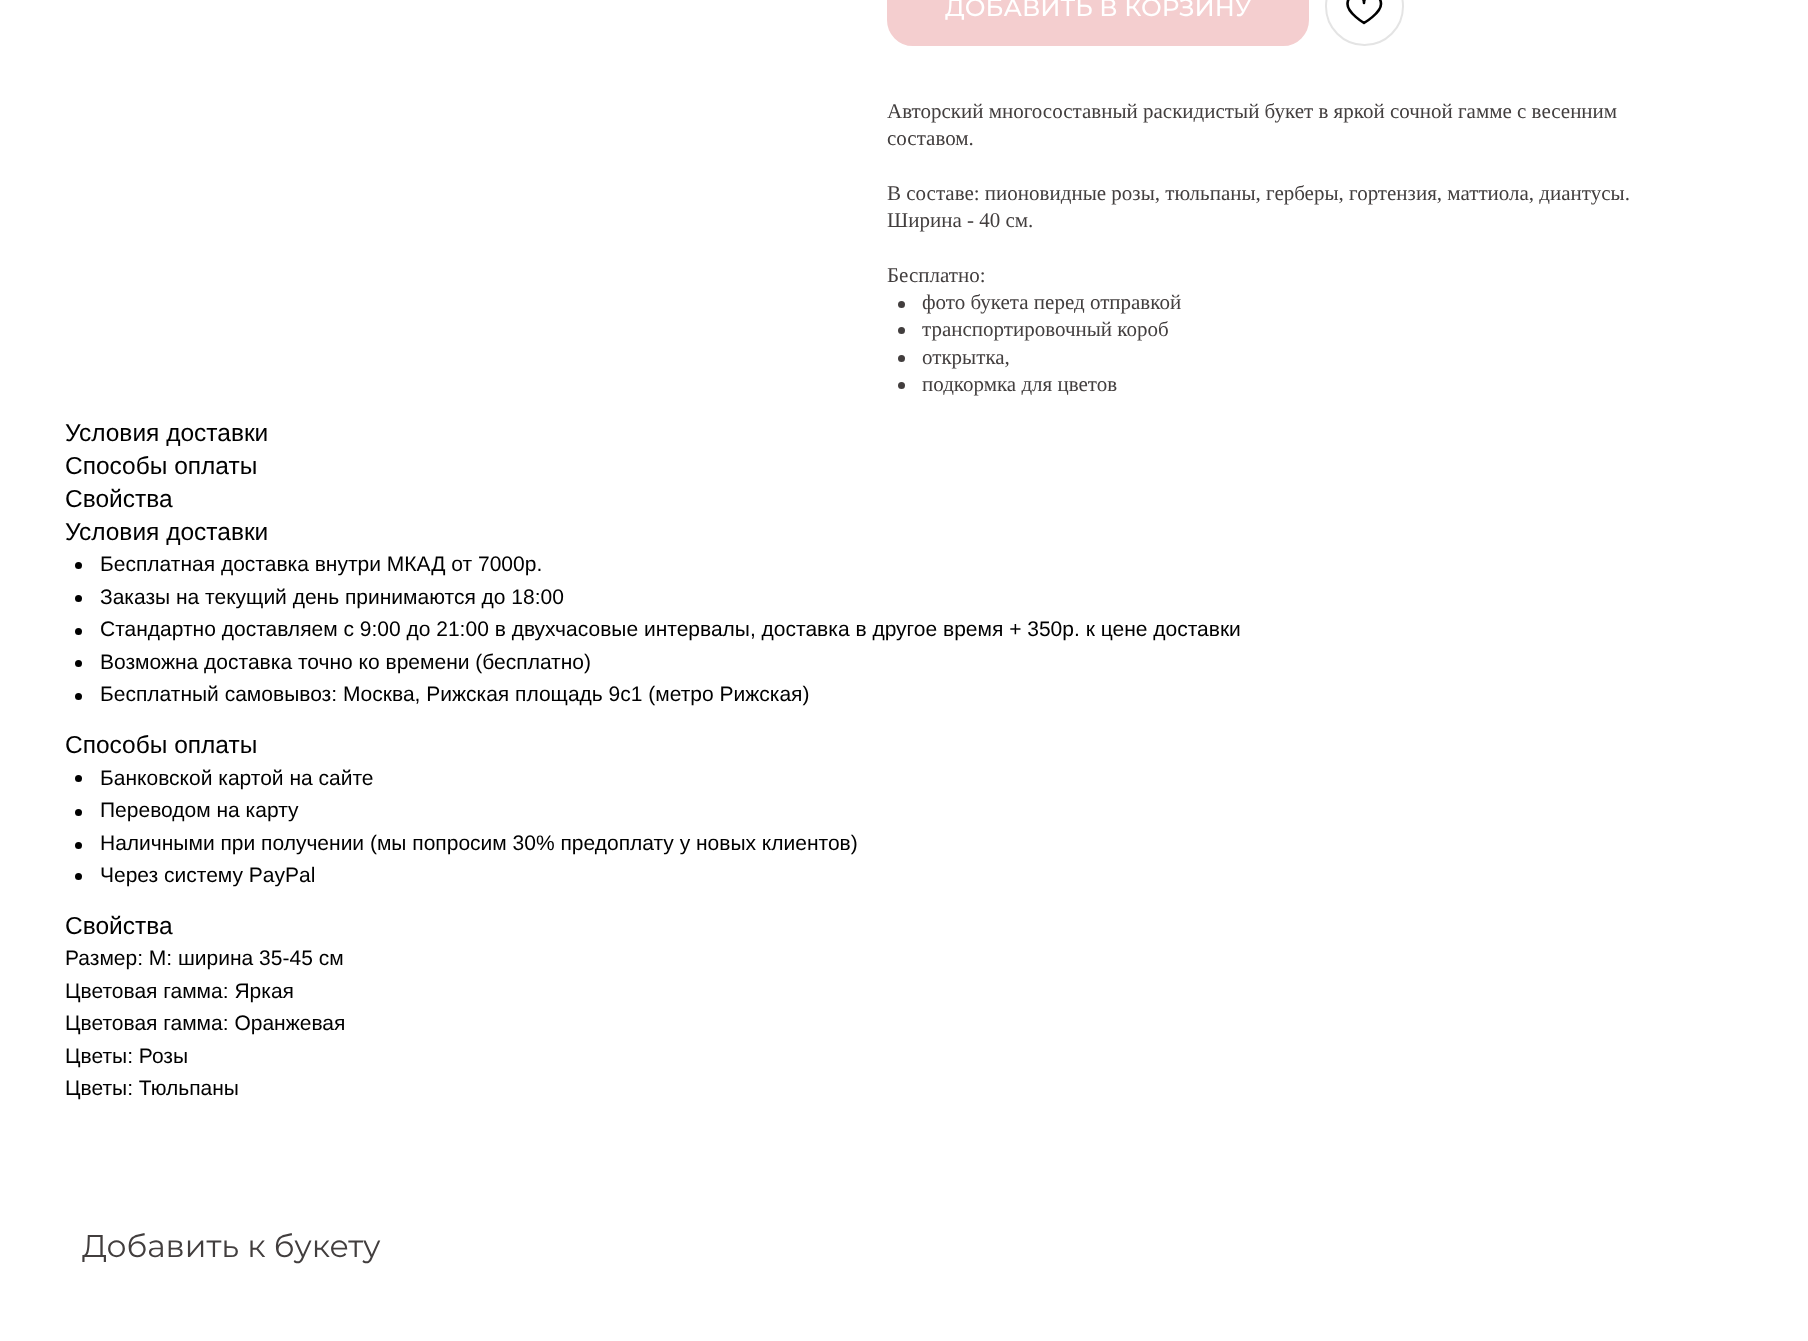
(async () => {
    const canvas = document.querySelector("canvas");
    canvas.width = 1808;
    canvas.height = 1341;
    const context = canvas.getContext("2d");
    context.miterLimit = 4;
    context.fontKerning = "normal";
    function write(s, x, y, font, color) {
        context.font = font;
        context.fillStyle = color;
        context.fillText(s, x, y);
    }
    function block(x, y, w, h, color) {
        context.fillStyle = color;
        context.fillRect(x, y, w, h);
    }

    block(0, 0, 1808, 1341, "rgb(255, 255, 255)");
    context.fillStyle = "rgb(244, 206, 207)";
    context.beginPath();
    context.roundRect(888, -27, 420, 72, 25);
    context.fill();
    context.strokeStyle = "rgb(244, 206, 207)";
    context.lineWidth = 2;
    context.stroke();
    write("ДОБАВИТЬ В КОРЗИНУ", 945, 16, "500 24.5px Montserrat", "rgb(255, 255, 255)");
    context.beginPath();
    context.arc(1364.5, 6.5, 38.5, 0, Math.PI * 2);
    context.strokeStyle = "rgb(228, 228, 228)";
    context.stroke();
    context.beginPath();
    context.moveTo(1381, 4);
    context.bezierCurveTo(1381, 13, 1364, 23, 1364, 23);
    context.bezierCurveTo(1364, 23, 1347.5, 13, 1347.5, 4);
    context.bezierCurveTo(1347.5, -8, 1364, -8, 1364, 3);
    context.bezierCurveTo(1364, -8, 1381, -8, 1381, 4);
    context.closePath();
    context.strokeStyle = "rgb(0, 0, 0)";
    context.lineWidth = 2.6;
    context.lineJoin = "round";
    context.stroke();
    write("Авторский многосоставный раскидистый букет в яркой сочной гамме с весенним", 887, 118, "21px Liberation Serif", "rgb(66, 62, 62)");
    write("составом.", 887, 145, "21px Liberation Serif", "rgb(66, 62, 62)");
    write("В составе: пионовидные розы, тюльпаны, герберы, гортензия, маттиола, диантусы.", 887, 200, "21px Liberation Serif", "rgb(66, 62, 62)");
    write("Ширина - 40 см.", 887, 227, "21px Liberation Serif", "rgb(66, 62, 62)");
    write("Бесплатно:", 887, 282, "21px Liberation Serif", "rgb(66, 62, 62)");
    context.beginPath();
    context.arc(901.5, 304.5, 3.5, 0, Math.PI * 2);
    context.fill();
    write("фото букета перед отправкой", 922, 309, "21px Liberation Serif", "rgb(66, 62, 62)");
    context.beginPath();
    context.arc(901.5, 330.5, 3.5, 0, Math.PI * 2);
    context.fill();
    write("транспортировочный короб", 922, 336, "21px Liberation Serif", "rgb(66, 62, 62)");
    context.beginPath();
    context.arc(901.5, 358.5, 3.5, 0, Math.PI * 2);
    context.fill();
    write("открытка,", 922, 364, "21px Liberation Serif", "rgb(66, 62, 62)");
    context.beginPath();
    context.arc(901.5, 385.5, 3.5, 0, Math.PI * 2);
    context.fill();
    write("подкормка для цветов", 922, 391, "21px Liberation Serif", "rgb(66, 62, 62)");
    write("Условия доставки", 65, 441, "24.5px Liberation Sans", "rgb(0, 0, 0)");
    write("Способы оплаты", 65, 474, "24.5px Liberation Sans", "rgb(0, 0, 0)");
    write("Свойства", 65, 507, "24.5px Liberation Sans", "rgb(0, 0, 0)");
    write("Условия доставки", 65, 540, "24.5px Liberation Sans", "rgb(0, 0, 0)");
    context.beginPath();
    context.arc(78.5, 565.5, 3.5, 0, Math.PI * 2);
    context.fill();
    write("Бесплатная доставка внутри МКАД от 7000р.", 100, 571, "21px Liberation Sans", "rgb(0, 0, 0)");
    context.beginPath();
    context.arc(78.5, 598.5, 3.5, 0, Math.PI * 2);
    context.fill();
    write("Заказы на текущий день принимаются до 18:00", 100, 604, "21px Liberation Sans", "rgb(0, 0, 0)");
    context.beginPath();
    context.arc(78.5, 631.5, 3.5, 0, Math.PI * 2);
    context.fill();
    write("Стандартно доставляем с 9:00 до 21:00 в двухчасовые интервалы, доставка в другое время + 350р. к цене доставки", 100, 636, "21px Liberation Sans", "rgb(0, 0, 0)");
    context.beginPath();
    context.arc(78.5, 663.5, 3.5, 0, Math.PI * 2);
    context.fill();
    write("Возможна доставка точно ко времени (бесплатно)", 100, 669, "21px Liberation Sans", "rgb(0, 0, 0)");
    context.beginPath();
    context.arc(78.5, 696.5, 3.5, 0, Math.PI * 2);
    context.fill();
    write("Бесплатный самовывоз: Москва, Рижская площадь 9с1 (метро Рижская)", 100, 701, "21px Liberation Sans", "rgb(0, 0, 0)");
    write("Способы оплаты", 65, 753, "24.5px Liberation Sans", "rgb(0, 0, 0)");
    context.beginPath();
    context.arc(78.5, 778.5, 3.5, 0, Math.PI * 2);
    context.fill();
    write("Банковской картой на сайте", 100, 785, "21px Liberation Sans", "rgb(0, 0, 0)");
    context.beginPath();
    context.arc(78.5, 812.5, 3.5, 0, Math.PI * 2);
    context.fill();
    write("Переводом на карту", 100, 817, "21px Liberation Sans", "rgb(0, 0, 0)");
    context.beginPath();
    context.arc(78.5, 845.5, 3.5, 0, Math.PI * 2);
    context.fill();
    write("Наличными при получении (мы попросим 30% предоплату у новых клиентов)", 100, 850, "21px Liberation Sans", "rgb(0, 0, 0)");
    context.beginPath();
    context.arc(78.5, 876.5, 3.5, 0, Math.PI * 2);
    context.fill();
    write("Через систему PayPal", 100, 882, "21px Liberation Sans", "rgb(0, 0, 0)");
    write("Свойства", 65, 934, "24.5px Liberation Sans", "rgb(0, 0, 0)");
    write("Размер: M: ширина 35-45 см", 65, 965, "21px Liberation Sans", "rgb(0, 0, 0)");
    write("Цветовая гамма: Яркая", 65, 998, "21px Liberation Sans", "rgb(0, 0, 0)");
    write("Цветовая гамма: Оранжевая", 65, 1030, "21px Liberation Sans", "rgb(0, 0, 0)");
    write("Цветы: Розы", 65, 1063, "21px Liberation Sans", "rgb(0, 0, 0)");
    write("Цветы: Тюльпаны", 65, 1095, "21px Liberation Sans", "rgb(0, 0, 0)");
    write("Добавить к букету", 82, 1257, "31.5px Montserrat", "rgb(66, 62, 62)");
})();
